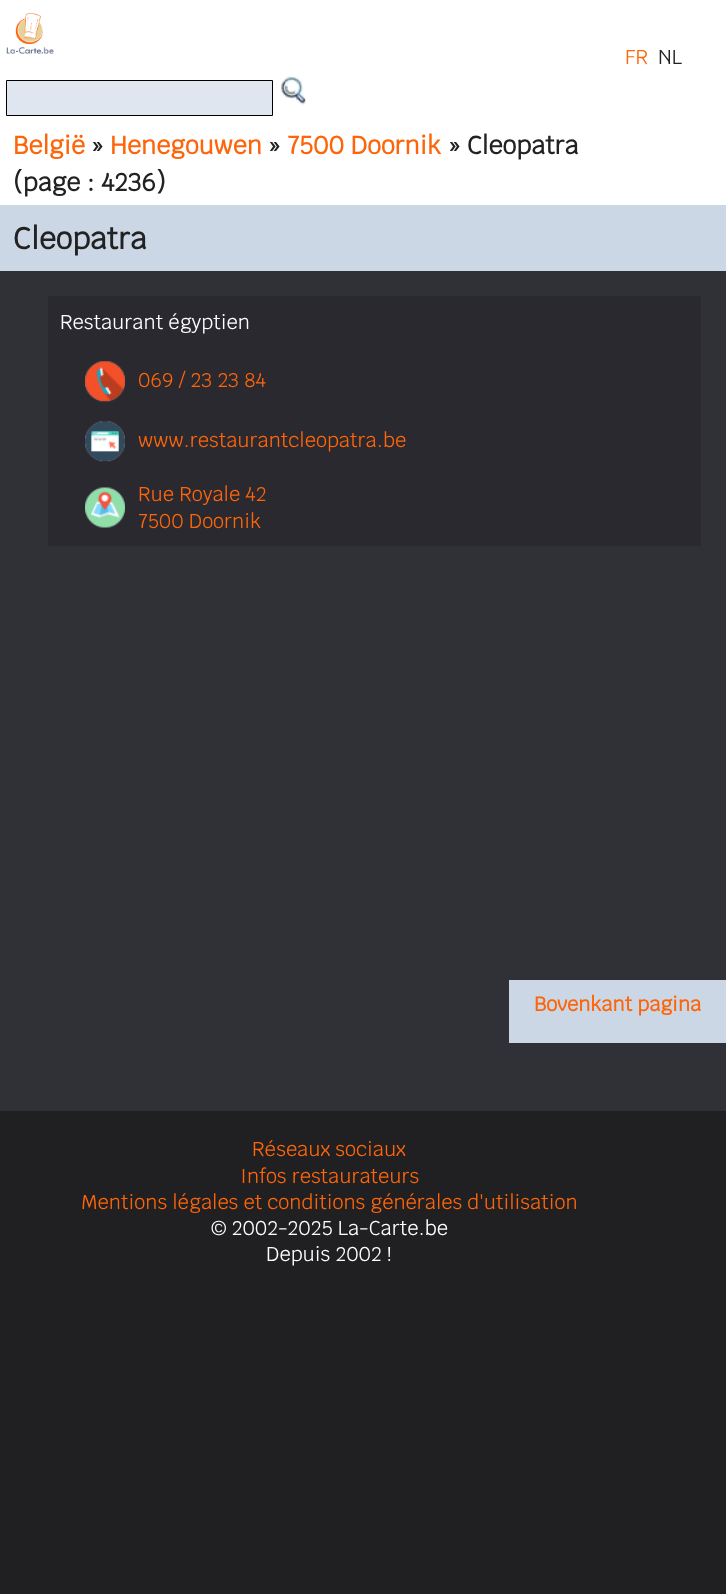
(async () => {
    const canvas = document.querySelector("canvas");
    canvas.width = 726;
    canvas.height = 1594;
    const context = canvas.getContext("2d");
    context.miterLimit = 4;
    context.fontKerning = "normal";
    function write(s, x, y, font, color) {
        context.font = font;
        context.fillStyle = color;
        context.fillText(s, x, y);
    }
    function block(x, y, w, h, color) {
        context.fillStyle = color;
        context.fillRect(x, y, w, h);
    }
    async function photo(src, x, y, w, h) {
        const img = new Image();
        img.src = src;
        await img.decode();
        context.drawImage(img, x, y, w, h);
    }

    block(0, 0, 726, 1594, "rgb(32, 32, 35)");
    block(0, 0, 726, 205, "rgb(255, 255, 255)");
    await photo("media/1.png", 6, 13, 48, 41);
    write("FR", 625, 64, "20px Krub", "rgb(254, 101, 10)");
    write("NL", 658, 64, "20px Krub", "rgb(34, 34, 34)");
    context.fillStyle = "rgb(223, 230, 239)";
    context.beginPath();
    context.rect(6.5, 80.5, 266, 35);
    context.fill();
    context.strokeStyle = "rgb(0, 0, 0)";
    context.stroke();
    await photo("media/2.png", 280, 76, 26, 29);
    write("België", 13, 154, "bold 25px Krub", "rgb(254, 101, 10)");
    write("»", 91, 154, "bold 25px Krub", "rgb(34, 34, 34)");
    write("Henegouwen", 110, 154, "bold 25px Krub", "rgb(254, 101, 10)");
    write("»", 268, 154, "bold 25px Krub", "rgb(34, 34, 34)");
    write("7500 Doornik", 287, 154, "bold 25px Krub", "rgb(254, 101, 10)");
    write("» Cleopatra", 448, 154, "bold 25px Krub", "rgb(34, 34, 34)");
    write("(page : 4236)", 13, 191, "bold 25px Krub", "rgb(34, 34, 34)");
    block(0, 205, 726, 66, "rgb(203, 215, 229)");
    write("Cleopatra", 13, 249, "bold 30px Krub", "rgb(34, 34, 34)");
    block(0, 271, 726, 840, "rgb(48, 48, 55)");
    block(48, 296, 653, 250, "rgb(41, 41, 47)");
    write("Restaurant égyptien", 60, 329, "20px Krub", "rgb(255, 255, 255)");
    await photo("media/3.png", 85, 361, 40, 41);
    write("069 / 23 23 84", 138, 387, "20px Krub", "rgb(254, 101, 10)");
    await photo("media/4.png", 85, 421, 40, 41);
    write("www.restaurantcleopatra.be", 138, 447, "20px Krub", "rgb(254, 101, 10)");
    await photo("media/5.png", 85, 487, 40, 41);
    write("Rue Royale 42", 138, 501, "20px Krub", "rgb(254, 101, 10)");
    write("7500 Doornik", 138, 528, "20px Krub", "rgb(254, 101, 10)");
    block(509, 980, 217, 63, "rgb(203, 215, 229)");
    write("Bovenkant pagina", 534, 1011, "bold 20px Krub", "rgb(254, 101, 10)");
    write("Réseaux sociaux", 252, 1156, "20px Krub", "rgb(254, 101, 10)");
    write("Infos restaurateurs", 240, 1183, "20px Krub", "rgb(254, 101, 10)");
    write("Mentions légales et conditions générales d'utilisation", 81, 1209, "20px Krub", "rgb(254, 101, 10)");
    write("© 2002-2025 La-Carte.be", 211, 1235, "20px Krub", "rgb(255, 255, 255)");
    write("Depuis 2002 !", 266, 1261, "20px Krub", "rgb(255, 255, 255)");
})();
